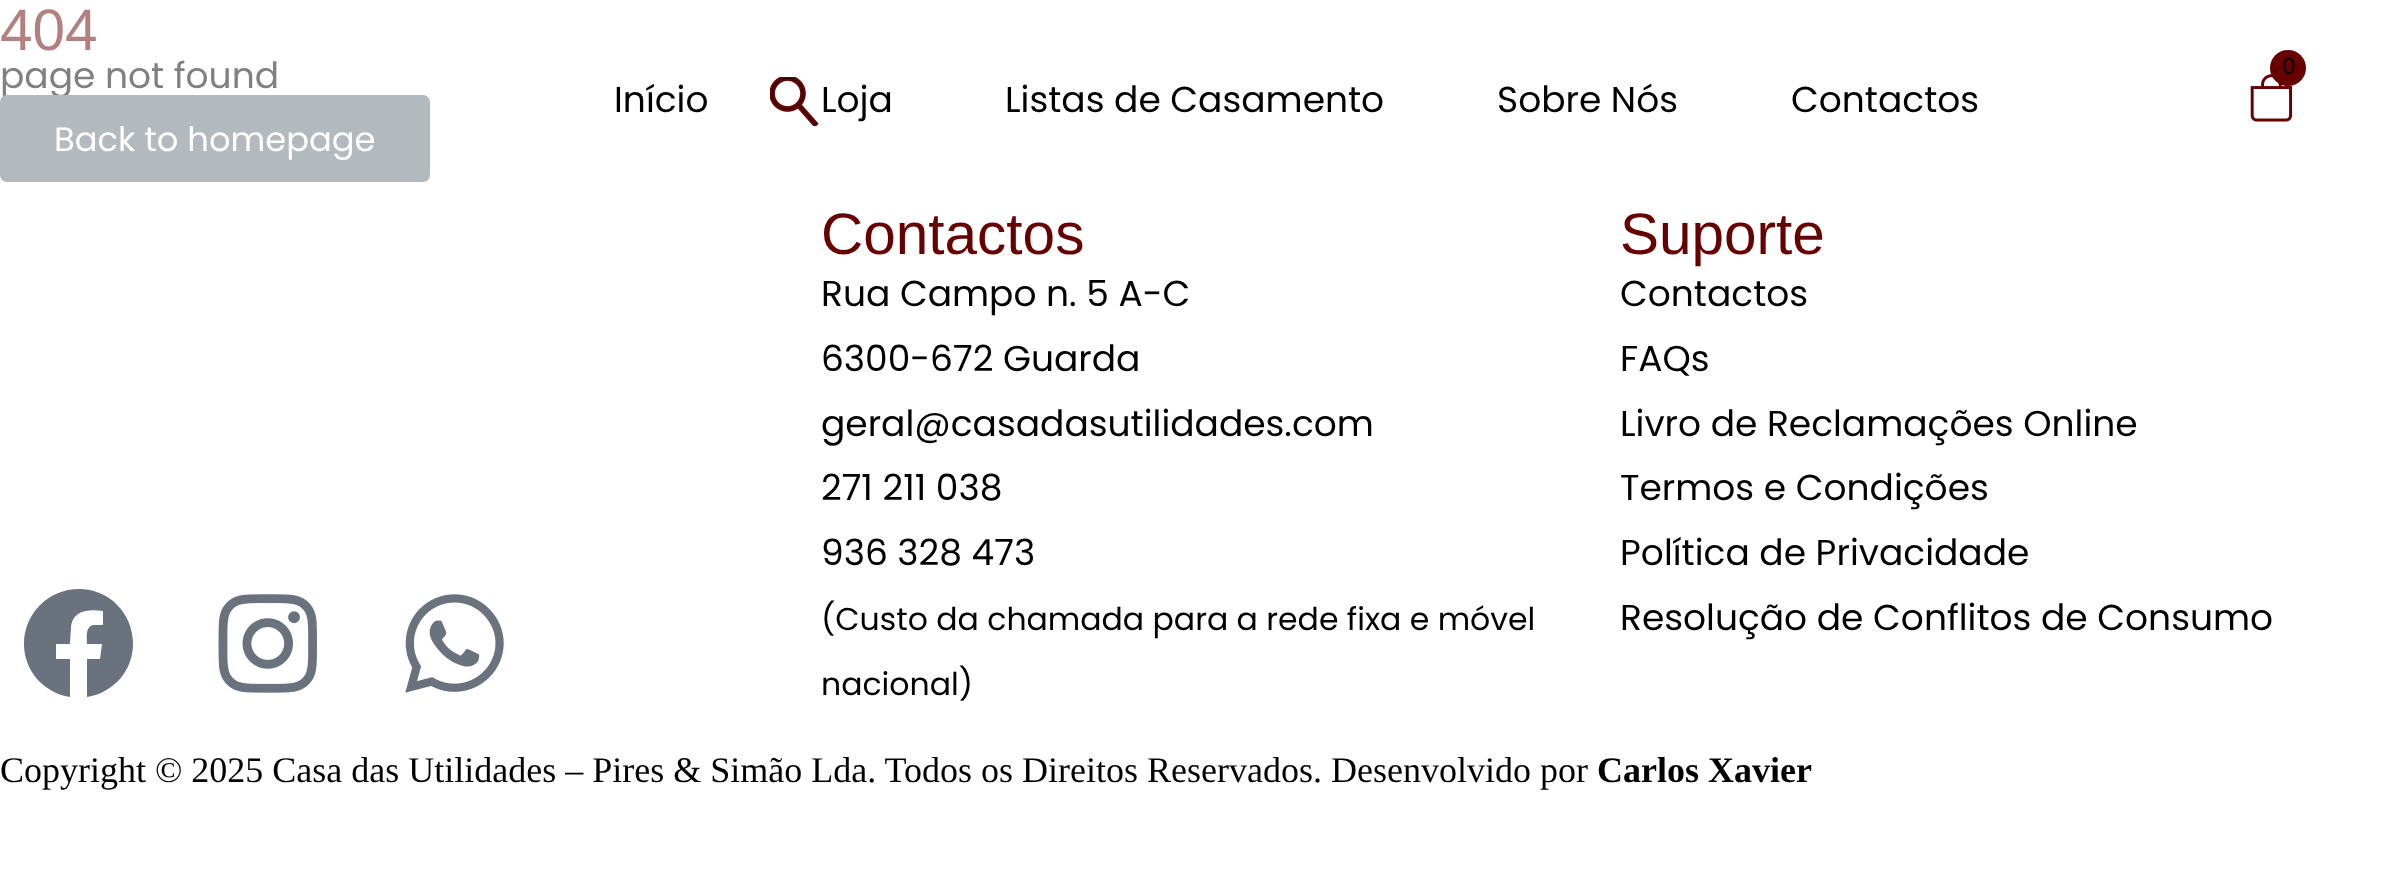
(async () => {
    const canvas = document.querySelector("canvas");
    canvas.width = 2396;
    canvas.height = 874;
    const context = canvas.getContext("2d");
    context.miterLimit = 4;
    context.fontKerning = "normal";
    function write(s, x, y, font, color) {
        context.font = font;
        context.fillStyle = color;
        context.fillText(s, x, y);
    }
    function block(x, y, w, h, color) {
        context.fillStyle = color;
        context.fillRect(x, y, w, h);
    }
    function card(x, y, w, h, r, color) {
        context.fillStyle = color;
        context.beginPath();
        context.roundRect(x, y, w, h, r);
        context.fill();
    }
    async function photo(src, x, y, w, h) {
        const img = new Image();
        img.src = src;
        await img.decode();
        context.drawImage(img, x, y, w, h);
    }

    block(0, 0, 2396, 874, "rgb(255, 255, 255)");
    write("404", 0, 50, "58.5px Liberation Sans", "rgb(179, 128, 128)");
    write("page not found", 0, 88, "36px Poppins", "rgb(128, 128, 128)");
    card(0, 95, 430, 87, 7, "rgb(180, 185, 190)");
    write("Back to homepage", 54, 151, "33.75px Poppins", "rgb(255, 255, 255)");
    await photo("media/1.png", 2250, 74, 43, 48);
    context.fillStyle = "rgb(103, 0, 1)";
    context.beginPath();
    context.arc(2288, 68, 18, 0, Math.PI * 2);
    context.fill();
    write("0", 2282, 74, "22px Poppins", "rgb(0, 0, 0)");
    await photo("media/2.png", 770, 77, 49, 49);
    write("Início", 614, 112, "36px Poppins", "rgb(0, 0, 0)");
    write("Loja", 821, 112, "36px Poppins", "rgb(0, 0, 0)");
    write("Listas de Casamento", 1005, 112, "36px Poppins", "rgb(0, 0, 0)");
    write("Sobre Nós", 1497, 112, "36px Poppins", "rgb(0, 0, 0)");
    write("Contactos", 1791, 112, "36px Poppins", "rgb(0, 0, 0)");
    context.fillStyle = "rgb(105, 114, 125)";
    context.beginPath();
    context.moveTo(133, 644);
    context.bezierCurveTo(133, 613, 109, 589, 79, 589);
    context.bezierCurveTo(49, 589, 24, 613, 24, 644);
    context.bezierCurveTo(24, 671, 44, 693, 70, 697);
    context.lineTo(70, 659);
    context.lineTo(56, 659);
    context.lineTo(56, 644);
    context.lineTo(70, 644);
    context.lineTo(71, 627);
    context.bezierCurveTo(73, 610, 89, 609, 103, 611);
    context.lineTo(103, 625);
    context.lineTo(94, 625);
    context.bezierCurveTo(85, 626, 87, 637, 87, 644);
    context.lineTo(102, 644);
    context.lineTo(100, 659);
    context.lineTo(87, 659);
    context.lineTo(87, 697);
    context.bezierCurveTo(113, 693, 133, 671, 133, 644);
    context.closePath();
    context.fill();
    await photo("media/3.png", 218, 594, 99, 99);
    await photo("media/4.png", 405, 594, 99, 99);
    write("Contactos", 821, 254, "58.5px Liberation Sans", "rgb(103, 0, 1)");
    write("Rua Campo n. 5 A-C", 821, 306, "36px Poppins", "rgb(0, 0, 0)");
    write("6300-672 Guarda", 821, 371, "36px Poppins", "rgb(0, 0, 0)");
    write("geral@casadasutilidades.com", 821, 436, "36px Poppins", "rgb(0, 0, 0)");
    write("271 211 038", 821, 500, "36px Poppins", "rgb(0, 0, 0)");
    write("936 328 473", 821, 565, "36px Poppins", "rgb(0, 0, 0)");
    write("(Custo da chamada para a rede fixa e móvel", 821, 630, "31.5px Poppins", "rgb(0, 0, 0)");
    write("nacional)", 821, 695, "31.5px Poppins", "rgb(0, 0, 0)");
    write("Suporte", 1620, 254, "58.5px Liberation Sans", "rgb(103, 0, 1)");
    write("Contactos", 1620, 306, "36px Poppins", "rgb(0, 0, 0)");
    write("FAQs", 1620, 371, "36px Poppins", "rgb(0, 0, 0)");
    write("Livro de Reclamações Online", 1620, 436, "36px Poppins", "rgb(0, 0, 0)");
    write("Termos e Condições", 1620, 500, "36px Poppins", "rgb(0, 0, 0)");
    write("Política de Privacidade", 1620, 565, "36px Poppins", "rgb(0, 0, 0)");
    write("Resolução de Conflitos de Consumo", 1620, 630, "36px Poppins", "rgb(0, 0, 0)");
    write("Copyright © 2025 Casa das Utilidades – Pires & Simão Lda. Todos os Direitos Reservados. Desenvolvido por", 0, 782, "36px Liberation Serif", "rgb(0, 0, 0)");
    write("Carlos Xavier", 1597, 782, "bold 36px Liberation Serif", "rgb(0, 0, 0)");
})();
